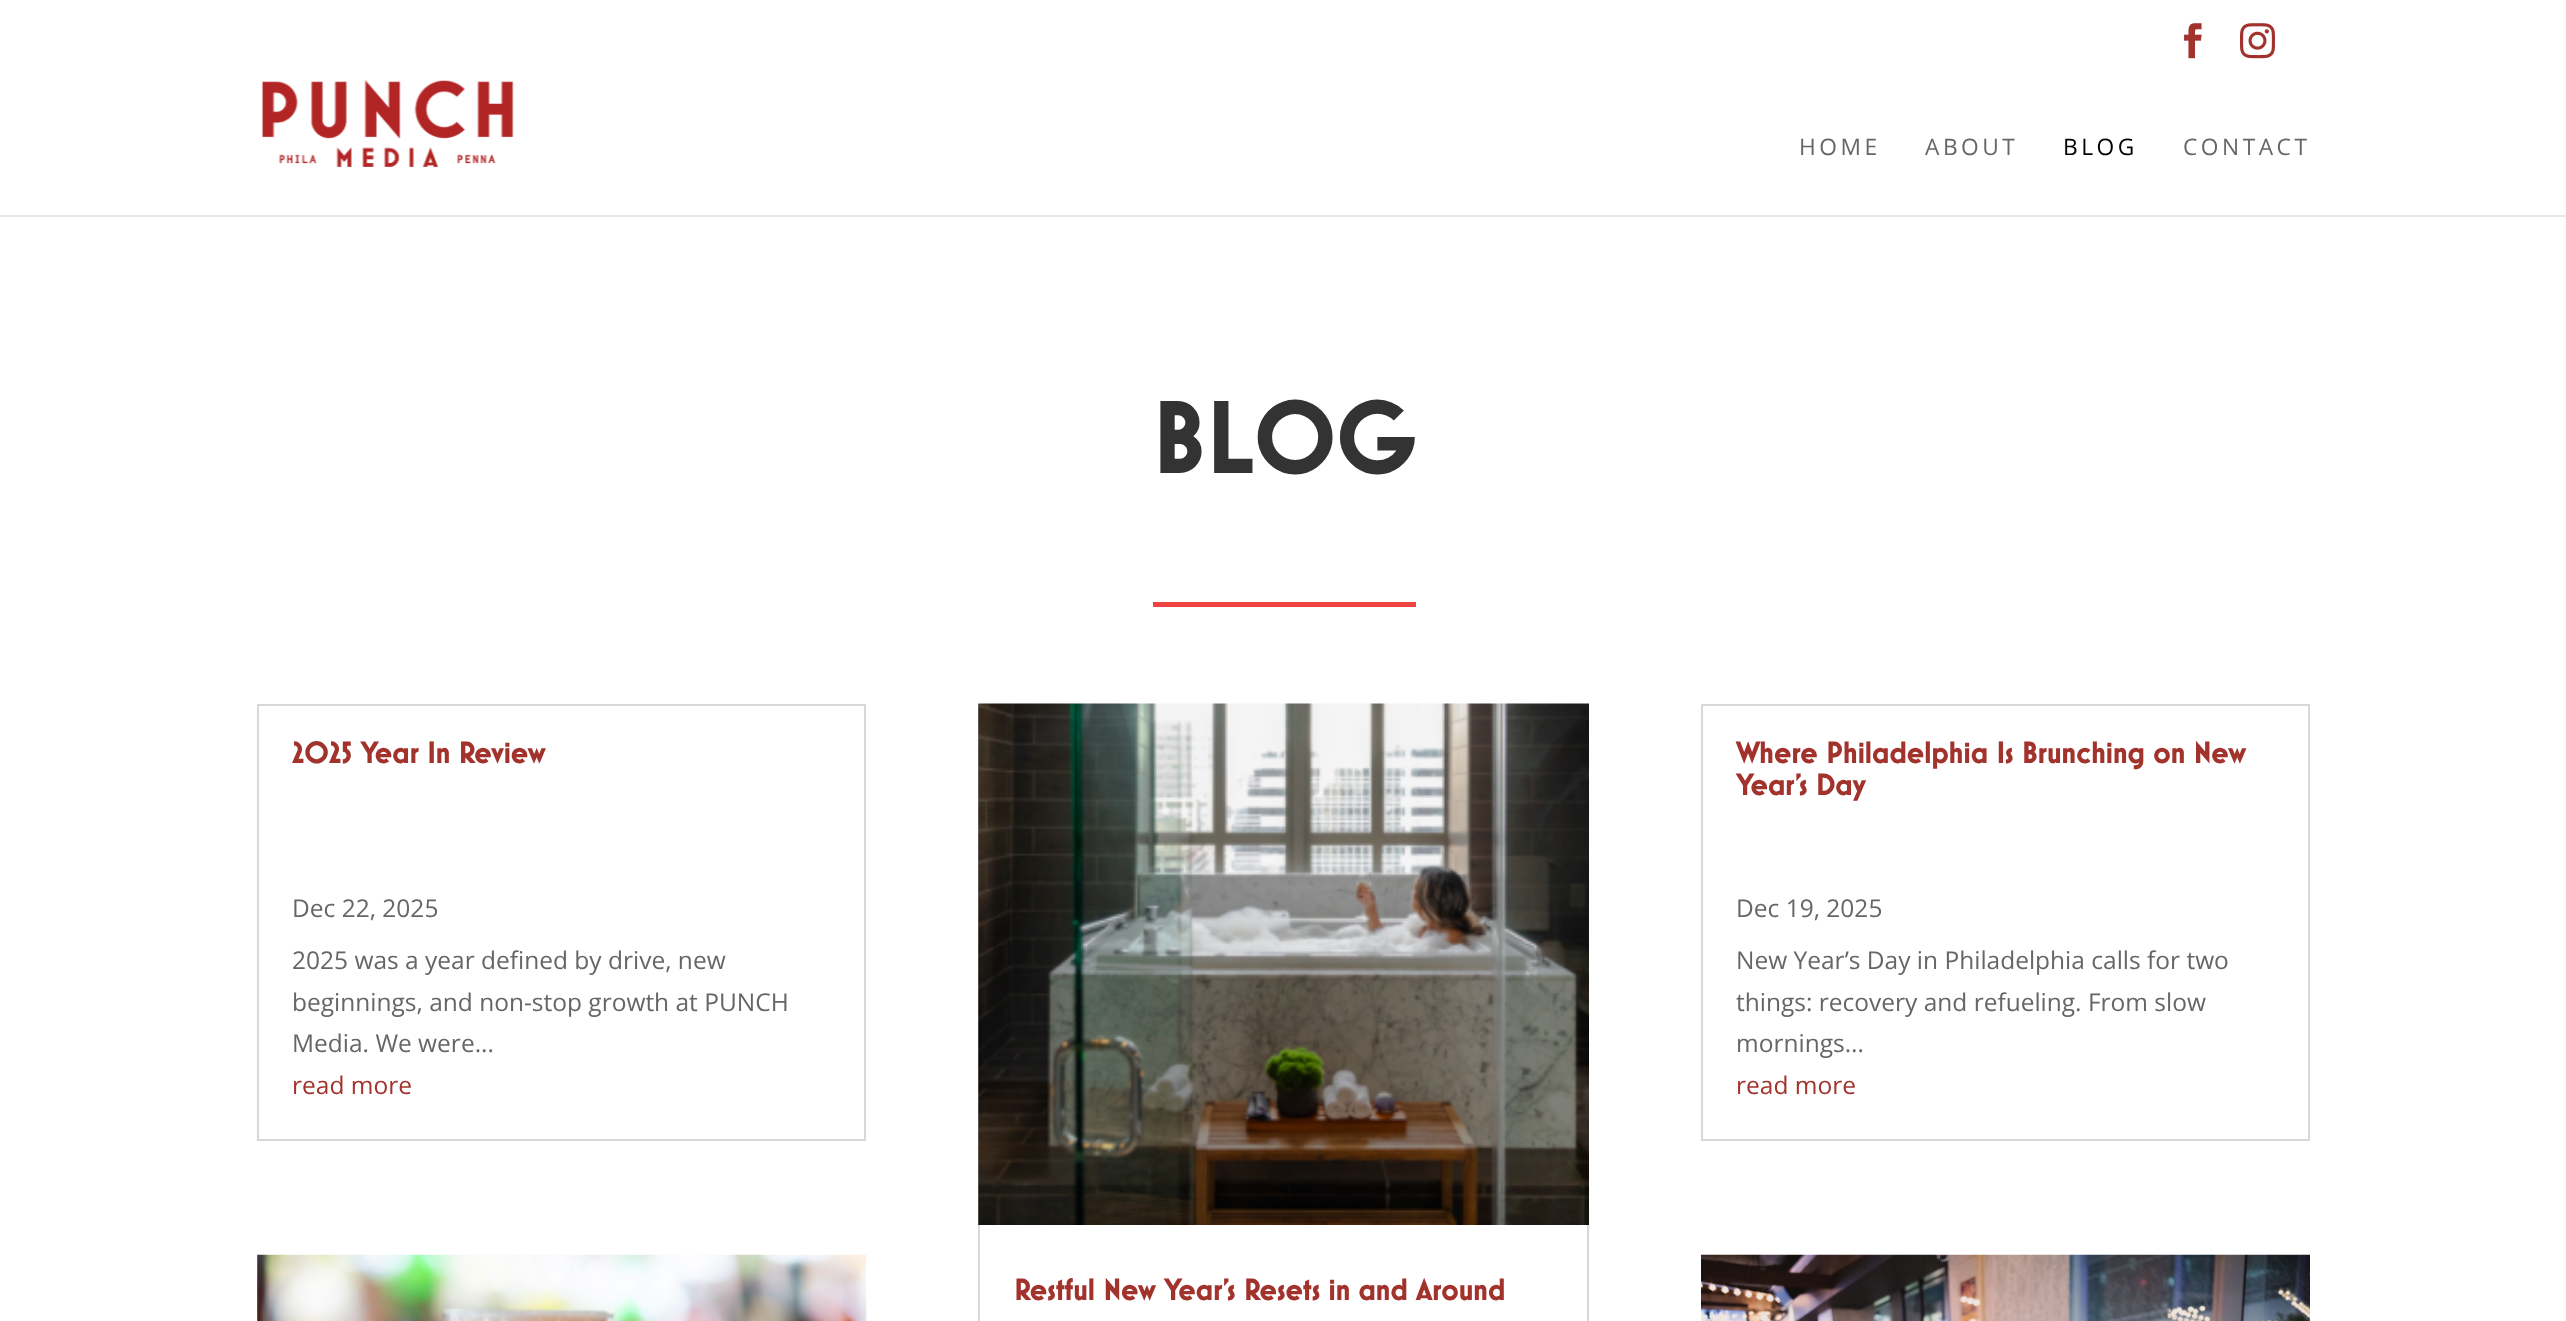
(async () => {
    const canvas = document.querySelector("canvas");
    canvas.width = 2566;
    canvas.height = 1321;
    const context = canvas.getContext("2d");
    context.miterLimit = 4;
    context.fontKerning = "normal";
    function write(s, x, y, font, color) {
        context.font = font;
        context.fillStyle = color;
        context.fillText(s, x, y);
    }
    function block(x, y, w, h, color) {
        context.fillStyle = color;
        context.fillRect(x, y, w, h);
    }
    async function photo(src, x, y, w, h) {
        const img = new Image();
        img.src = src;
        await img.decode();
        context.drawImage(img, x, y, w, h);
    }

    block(0, 0, 2566, 1321, "rgb(255, 255, 255)");
    await photo("media/1.png", 2184, 23, 18, 36);
    await photo("media/2.png", 2240, 23, 35, 36);
    block(0, 215, 2566, 2, "rgb(230, 230, 230)");
    await photo("media/3.png", 262, 80, 252, 87);
    context.letterSpacing = "3.5px";
    write("HOME", 1799, 155, "22.75px Open Sans", "rgb(102, 102, 102)");
    write("ABOUT", 1925, 155, "22.75px Open Sans", "rgb(102, 102, 102)");
    write("BLOG", 2063, 155, "22.75px Open Sans", "rgb(0, 0, 0)");
    write("CONTACT", 2183, 155, "22.75px Open Sans", "rgb(102, 102, 102)");
    context.letterSpacing = "0px";
    write("BLOG", 1152, 473, "bold 105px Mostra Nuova", "rgb(51, 51, 51)");
    block(1153, 602, 263, 5, "rgb(237, 68, 65)");
    context.strokeStyle = "rgb(216, 216, 216)";
    context.lineWidth = 2;
    context.strokeRect(258, 705, 607, 435);
    write("2025 Year In Review", 292, 763, "bold 31.5px Mostra Nuova", "rgb(162, 50, 44)");
    write("Dec 22, 2025", 292, 917, "24.5px Open Sans", "rgb(102, 102, 102)");
    write("2025 was a year defined by drive, new", 292, 969, "24.5px Open Sans", "rgb(102, 102, 102)");
    write("beginnings, and non-stop growth at PUNCH", 292, 1011, "24.5px Open Sans", "rgb(102, 102, 102)");
    write("Media. We were...", 292, 1052, "24.5px Open Sans", "rgb(102, 102, 102)");
    write("read more", 292, 1094, "24.5px Open Sans", "rgb(162, 50, 44)");
    context.strokeRect(258, 1256, 607, 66);
    await photo("media/4.png", 257, 1254, 610, 67);
    context.strokeRect(1702, 705, 607, 435);
    write("Where Philadelphia Is Brunching on New", 1736, 763, "bold 31.5px Mostra Nuova", "rgb(162, 50, 44)");
    write("Year’s Day", 1736, 795, "bold 31.5px Mostra Nuova", "rgb(162, 50, 44)");
    write("Dec 19, 2025", 1736, 917, "24.5px Open Sans", "rgb(102, 102, 102)");
    write("New Year’s Day in Philadelphia calls for two", 1736, 969, "24.5px Open Sans", "rgb(102, 102, 102)");
    write("things: recovery and refueling. From slow", 1736, 1011, "24.5px Open Sans", "rgb(102, 102, 102)");
    write("mornings...", 1736, 1052, "24.5px Open Sans", "rgb(102, 102, 102)");
    write("read more", 1736, 1094, "24.5px Open Sans", "rgb(162, 50, 44)");
    await photo("media/5.png", 1701, 1254, 609, 67);
    context.strokeRect(979, 705, 609, 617);
    await photo("media/6.png", 978, 703, 611, 522);
    write("Restful New Year’s Resets in and Around", 1014, 1300, "bold 31.5px Mostra Nuova", "rgb(162, 50, 44)");
})();
